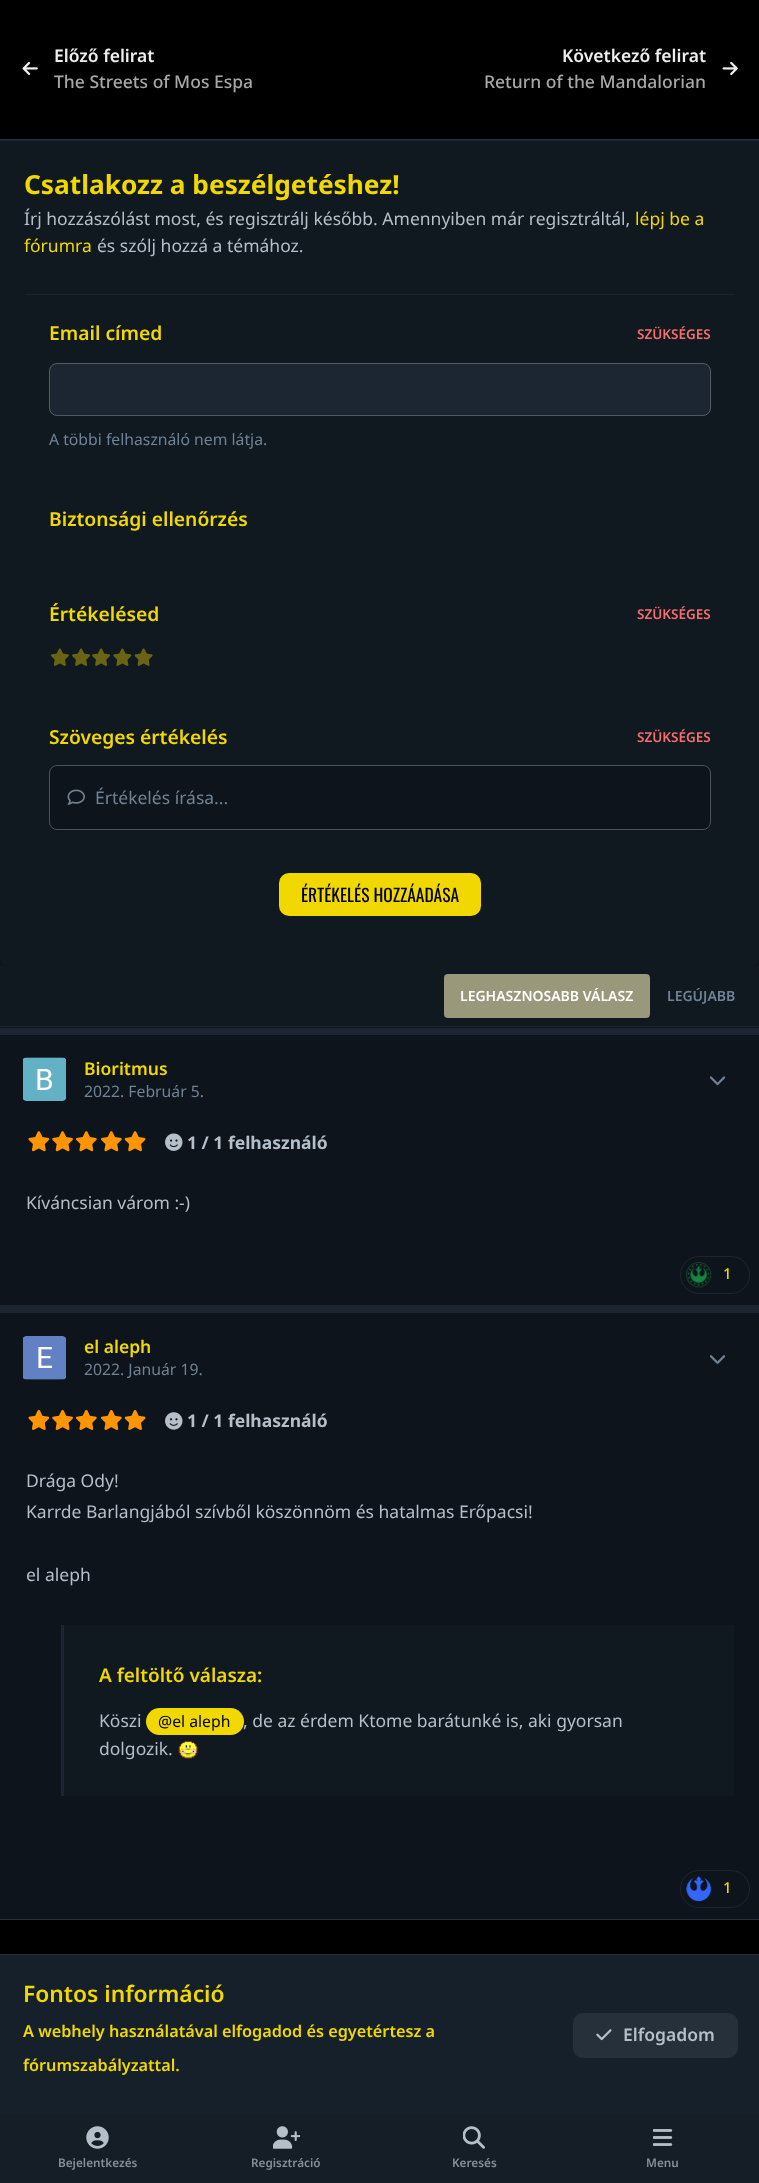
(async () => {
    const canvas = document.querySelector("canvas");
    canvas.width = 759;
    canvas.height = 2183;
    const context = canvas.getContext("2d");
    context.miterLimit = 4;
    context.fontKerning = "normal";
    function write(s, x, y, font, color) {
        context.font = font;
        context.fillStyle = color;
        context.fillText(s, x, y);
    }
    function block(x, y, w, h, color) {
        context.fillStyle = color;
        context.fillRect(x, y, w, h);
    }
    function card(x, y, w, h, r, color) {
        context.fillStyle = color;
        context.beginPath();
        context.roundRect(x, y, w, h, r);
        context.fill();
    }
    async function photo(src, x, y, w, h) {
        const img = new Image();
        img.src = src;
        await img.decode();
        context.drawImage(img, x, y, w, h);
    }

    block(0, 0, 759, 2183, "rgb(0, 0, 0)");
    write("Előző felirat", 54, 62, "600 17.5px Noto Sans", "rgb(238, 238, 238)");
    await photo("media/1.png", 22, 61, 16, 14);
    write("The Streets of Mos Espa", 54, 88, "500 17.5px Noto Sans", "rgb(167, 167, 167)");
    write("Következő felirat", 562, 62, "600 17.5px Noto Sans", "rgb(238, 238, 238)");
    await photo("media/2.png", 722, 61, 16, 14);
    write("Return of the Mandalorian", 484, 88, "500 17.5px Noto Sans", "rgb(167, 167, 167)");
    block(0, 956, 759, 963, "rgb(14, 20, 27)");
    block(0, 139, 759, 1, "rgb(35, 50, 65)");
    block(0, 1919, 759, 1, "rgb(35, 50, 65)");
    context.fillStyle = "rgb(16, 24, 32)";
    context.beginPath();
    context.moveTo(0, 140);
    context.lineTo(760, 140);
    context.lineTo(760, 956);
    context.bezierCurveTo(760, 961.5, 755.5, 966, 750, 966);
    context.lineTo(10, 966);
    context.bezierCurveTo(4.5, 966, 0, 961.5, 0, 956);
    context.closePath();
    context.fill();
    block(0, 140, 759, 1, "rgb(27, 38, 50)");
    write("Csatlakozz a beszélgetéshez!", 24, 194, "bold 26.25px Noto Sans", "rgb(240, 216, 0)");
    write("Írj hozzászólást most, és regisztrálj később. Amennyiben már regisztráltál,", 24, 225, "17.5px Noto Sans", "rgb(180, 191, 202)");
    write("lépj be a", 635, 225, "17.5px Noto Sans", "rgb(240, 216, 0)");
    write("fórumra", 24, 252, "17.5px Noto Sans", "rgb(240, 216, 0)");
    write("és szólj hozzá a témához.", 97, 252, "17.5px Noto Sans", "rgb(180, 191, 202)");
    block(25, 294, 710, 1, "rgb(27, 38, 50)");
    write("Email címed", 49, 340, "600 19.25px Noto Sans", "rgb(240, 216, 0)");
    write("SZÜKSÉGES", 637, 339, "600 13.5px Noto Sans", "rgb(247, 110, 110)");
    card(49, 363, 662, 53, 8, "rgb(27, 38, 50)");
    context.beginPath();
    context.roundRect(49.5, 363.5, 661, 52, 7.5);
    context.strokeStyle = "rgba(180, 191, 202, 0.35)";
    context.stroke();
    write("A többi felhasználó nem látja.", 49, 445, "15.75px Noto Sans", "rgb(111, 131, 150)");
    write("Biztonsági ellenőrzés", 49, 526, "600 19.25px Noto Sans", "rgb(240, 216, 0)");
    write("Értékelésed", 49, 621, "600 19.25px Noto Sans", "rgb(240, 216, 0)");
    write("SZÜKSÉGES", 637, 619, "600 13.5px Noto Sans", "rgb(247, 110, 110)");
    await photo("media/3.png", 50, 648, 19, 18);
    await photo("media/4.png", 72, 648, 19, 18);
    await photo("media/4.png", 92, 648, 19, 18);
    await photo("media/5.png", 113, 648, 19, 18);
    await photo("media/6.png", 134, 648, 19, 18);
    write("Szöveges értékelés", 49, 744, "600 19.25px Noto Sans", "rgb(240, 216, 0)");
    write("SZÜKSÉGES", 637, 742, "600 13.5px Noto Sans", "rgb(247, 110, 110)");
    card(50, 766, 660, 63, 6, "rgb(14, 20, 27)");
    context.beginPath();
    context.roundRect(49.5, 765.5, 661, 64, 7.5);
    context.stroke();
    await photo("media/7.png", 67, 789, 18, 16);
    write("Értékelés írása...", 95, 804, "17.5px Noto Sans", "rgb(111, 131, 150)");
    card(279, 873, 202, 43, 10, "rgb(240, 216, 0)");
    write("ÉRTÉKELÉS HOZZÁADÁSA", 301, 902, "17.5px Oswald", "rgb(0, 0, 0)");
    block(0, 966, 759, 60, "rgb(16, 24, 32)");
    block(0, 1026, 759, 1, "rgb(27, 38, 50)");
    card(444, 974, 206, 44, 4, "rgb(153, 152, 122)");
    write("LEGHASZNOSABB VÁLASZ", 460, 1001, "600 14px Noto Sans", "rgb(255, 255, 255)");
    write("LEGÚJABB", 667, 1001, "600 14px Noto Sans", "rgb(111, 131, 150)");
    block(0, 1028, 759, 7, "rgb(27, 38, 50)");
    await photo("media/8.png", 23, 1057, 43, 44);
    write("Bioritmus", 84, 1075, "600 17.5px Noto Sans", "rgb(240, 216, 0)");
    write("2022. Február 5.", 84, 1097, "15.75px Noto Sans", "rgb(111, 131, 150)");
    await photo("media/9.png", 709, 1076, 17, 10);
    await photo("media/10.png", 28, 1131, 22, 21);
    await photo("media/11.png", 52, 1131, 21, 21);
    await photo("media/12.png", 76, 1131, 21, 21);
    await photo("media/12.png", 101, 1131, 21, 21);
    await photo("media/13.png", 124, 1131, 22, 21);
    await photo("media/14.png", 165, 1133, 18, 18);
    write("1 / 1 felhasználó", 187, 1149, "bold 17.5px Noto Sans", "rgb(180, 191, 202)");
    write("Kíváncsian várom :-)", 26, 1209, "17.5px Noto Sans", "rgb(180, 191, 202)");
    context.beginPath();
    context.roundRect(680.5, 1256.5, 69, 37, 18.5);
    context.strokeStyle = "rgb(27, 38, 50)";
    context.stroke();
    await photo("media/15.png", 686, 1262, 26, 26);
    write("1", 723, 1279, "500 15px Noto Sans", "rgb(240, 216, 0)");
    block(0, 1305, 759, 8, "rgb(27, 38, 50)");
    card(23, 1336, 43, 44, 10, "rgb(22, 32, 42)");
    await photo("media/16.png", 23, 1336, 43, 44);
    write("el aleph", 84, 1353, "600 17.5px Noto Sans", "rgb(240, 216, 0)");
    write("2022. Január 19.", 84, 1375, "15.75px Noto Sans", "rgb(111, 131, 150)");
    await photo("media/17.png", 709, 1355, 17, 9);
    await photo("media/18.png", 28, 1409, 22, 21);
    await photo("media/19.png", 52, 1409, 21, 21);
    await photo("media/20.png", 76, 1409, 21, 21);
    await photo("media/20.png", 101, 1409, 21, 21);
    await photo("media/21.png", 124, 1409, 22, 21);
    await photo("media/22.png", 165, 1412, 18, 18);
    write("1 / 1 felhasználó", 187, 1427, "bold 17.5px Noto Sans", "rgb(180, 191, 202)");
    write("Drága Ody!", 26, 1487, "17.5px Noto Sans", "rgb(180, 191, 202)");
    write("Karrde Barlangjából szívből köszönnöm és hatalmas Erőpacsi!", 26, 1518, "17.5px Noto Sans", "rgb(180, 191, 202)");
    write("el aleph", 26, 1581, "17.5px Noto Sans", "rgb(180, 191, 202)");
    block(64, 1625, 670, 171, "rgb(16, 24, 32)");
    block(61, 1625, 3, 171, "rgb(27, 38, 50)");
    write("A feltöltő válasza:", 99, 1682, "600 19px Noto Sans", "rgb(240, 216, 0)");
    card(146, 1708, 98, 27, 13.5, "rgb(240, 216, 0)");
    write("@el aleph", 158, 1727, "15.75px Noto Sans", "rgb(0, 0, 0)");
    write(", de az érdem Ktome barátunké is, aki gyorsan", 243, 1727, "17.5px Noto Sans", "rgb(180, 191, 202)");
    write("dolgozik.", 99, 1755, "17.5px Noto Sans", "rgb(180, 191, 202)");
    await photo("media/23.png", 178, 1740, 20, 19);
    write("Köszi", 99, 1727, "17.5px Noto Sans", "rgb(180, 191, 202)");
    context.beginPath();
    context.roundRect(680.5, 1870.5, 69, 37, 18.5);
    context.stroke();
    await photo("media/24.png", 686, 1876, 26, 25);
    write("1", 723, 1893, "500 15px Noto Sans", "rgb(240, 216, 0)");
    block(0, 1955, 759, 160, "rgb(22, 32, 42)");
    block(0, 1954, 759, 1, "rgb(38, 48, 58)");
    write("Fontos információ", 23, 2002, "600 22.75px Noto Sans", "rgb(240, 216, 0)");
    write("A webhely használatával elfogadod és egyetértesz a", 23, 2037, "600 16.25px Noto Sans", "rgb(240, 216, 0)");
    write("fórumszabályzattal.", 23, 2071, "600 16.25px Noto Sans", "rgb(240, 216, 0)");
    card(573, 2013, 165, 45, 10, "rgb(38, 48, 58)");
    await photo("media/25.png", 596, 2029, 16, 12);
    write("Elfogadom", 623, 2041, "600 17.5px Noto Sans", "rgb(180, 191, 202)");
    block(0, 2115, 759, 68, "rgb(21, 30, 39)");
    await photo("media/26.png", 86, 2126, 23, 23);
    write("Bejelentkezés", 58, 2167, "600 11.75px Noto Sans", "rgb(132, 143, 153)");
    await photo("media/27.png", 273, 2126, 27, 23);
    write("Regisztráció", 251, 2167, "600 11.75px Noto Sans", "rgb(132, 143, 153)");
    await photo("media/28.png", 463, 2126, 22, 23);
    write("Keresés", 452, 2167, "600 11.75px Noto Sans", "rgb(132, 143, 153)");
    await photo("media/29.png", 653, 2129, 20, 17);
    write("Menu", 646, 2167, "600 11.75px Noto Sans", "rgb(132, 143, 153)");
})();
